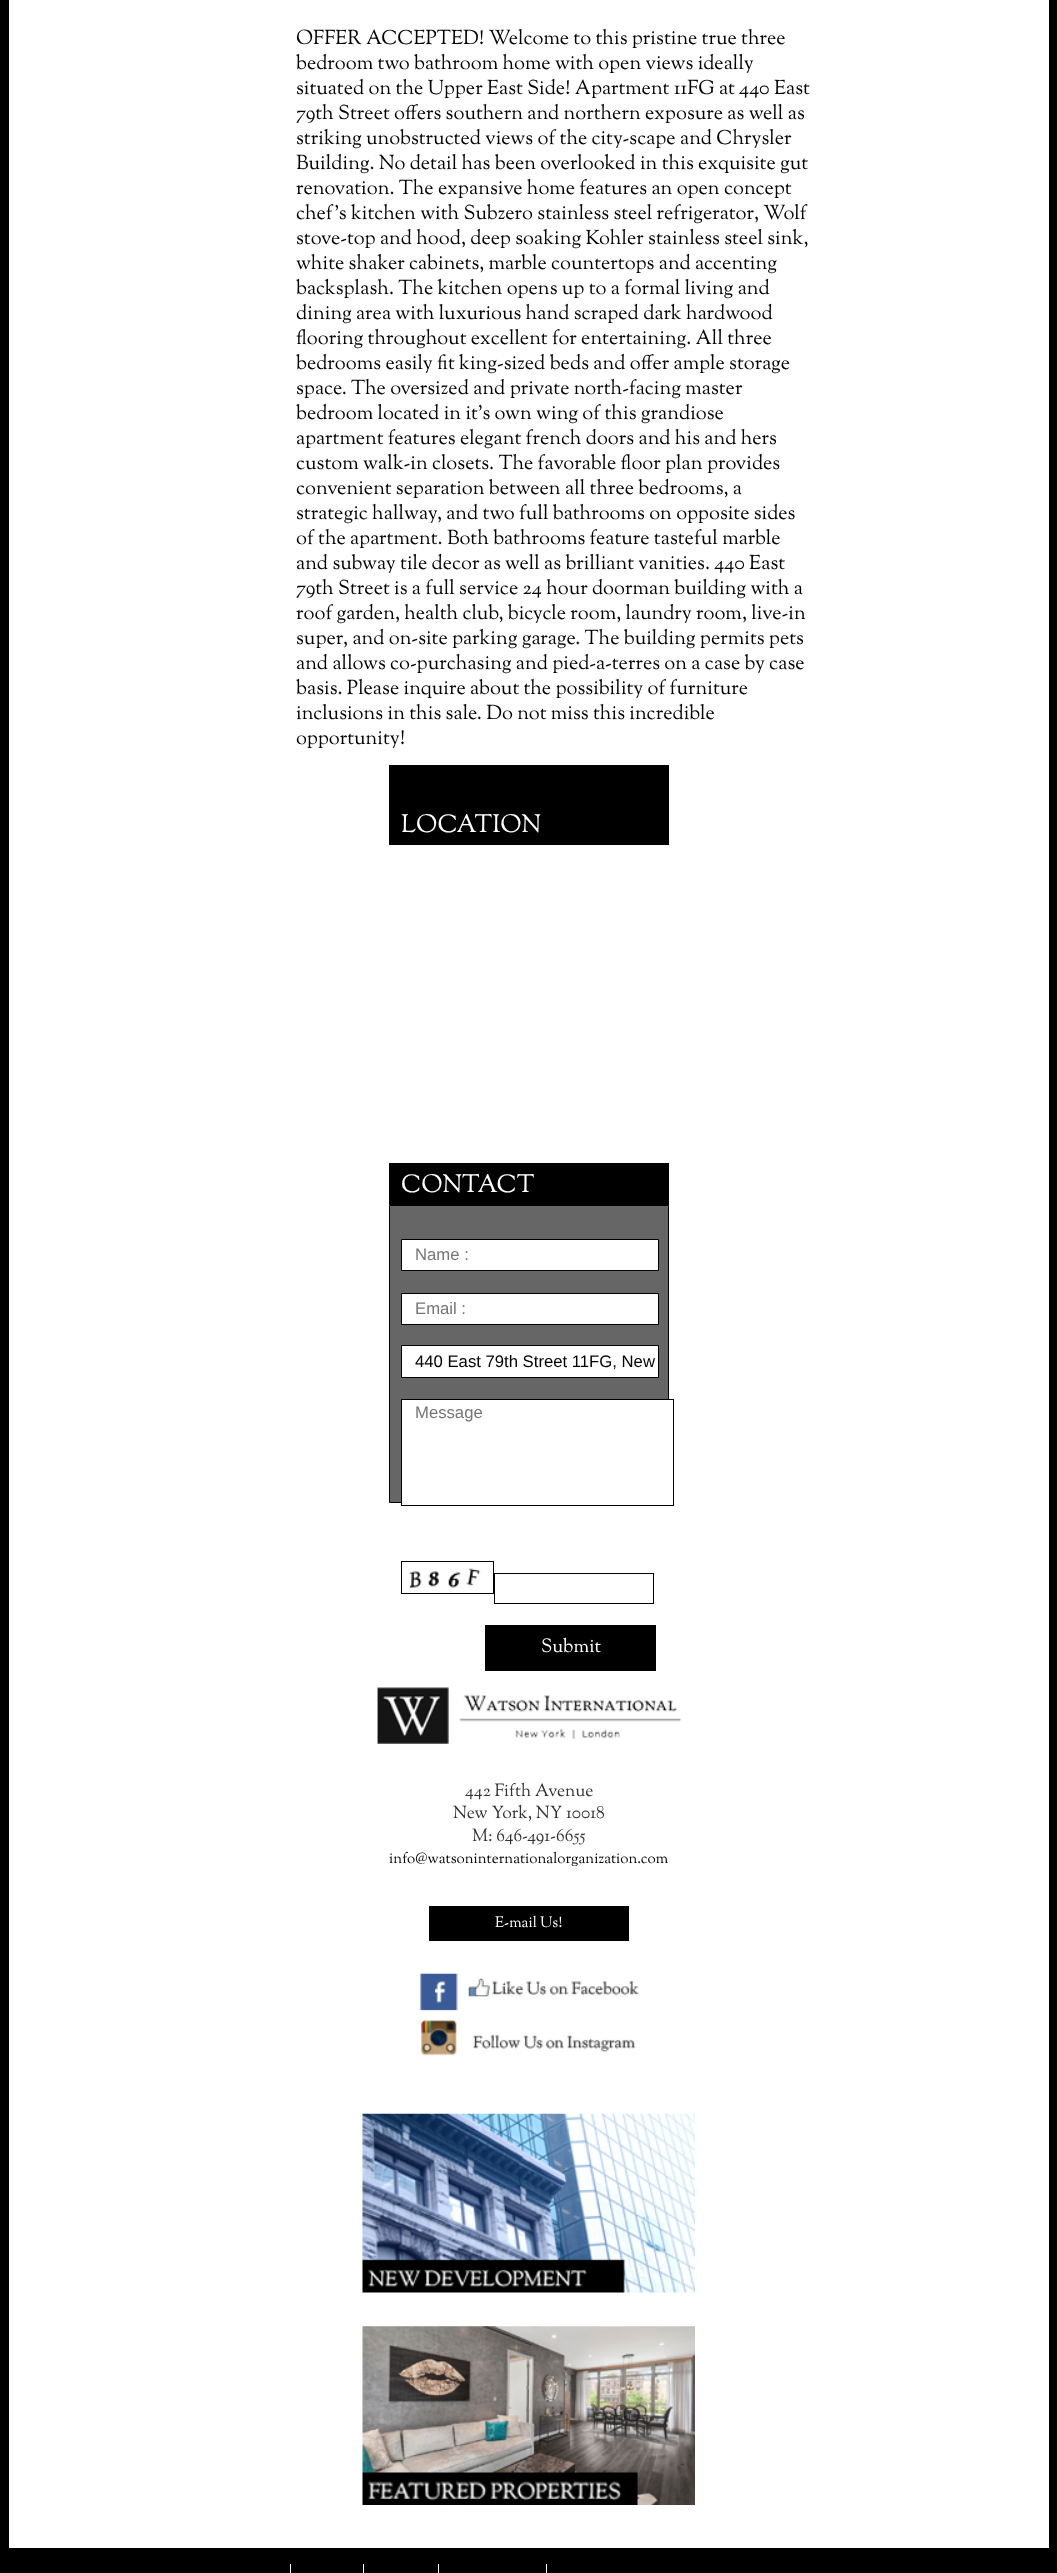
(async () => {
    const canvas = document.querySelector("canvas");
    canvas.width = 1057;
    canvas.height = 2573;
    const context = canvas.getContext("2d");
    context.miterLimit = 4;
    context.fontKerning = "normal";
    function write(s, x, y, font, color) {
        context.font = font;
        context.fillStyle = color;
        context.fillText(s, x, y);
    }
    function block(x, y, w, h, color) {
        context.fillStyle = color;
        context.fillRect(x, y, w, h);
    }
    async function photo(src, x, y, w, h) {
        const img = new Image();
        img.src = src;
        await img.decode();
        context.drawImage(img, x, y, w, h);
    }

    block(0, 0, 1057, 2573, "rgb(0, 0, 0)");
    block(9, 0, 1040, 2548, "rgb(255, 255, 255)");
    write("OFFER ACCEPTED! Welcome to this pristine true three", 296, 44, "20px Sorts Mill Goudy", "rgb(0, 0, 0)");
    write("bedroom two bathroom home with open views ideally", 296, 69, "20px Sorts Mill Goudy", "rgb(0, 0, 0)");
    write("situated on the Upper East Side! Apartment 11FG at 440 East", 296, 94, "20px Sorts Mill Goudy", "rgb(0, 0, 0)");
    write("79th Street offers southern and northern exposure as well as", 296, 119, "20px Sorts Mill Goudy", "rgb(0, 0, 0)");
    write("striking unobstructed views of the city-scape and Chrysler", 296, 144, "20px Sorts Mill Goudy", "rgb(0, 0, 0)");
    write("Building. No detail has been overlooked in this exquisite gut", 296, 169, "20px Sorts Mill Goudy", "rgb(0, 0, 0)");
    write("renovation. The expansive home features an open concept", 296, 194, "20px Sorts Mill Goudy", "rgb(0, 0, 0)");
    write("chef's kitchen with Subzero stainless steel refrigerator, Wolf", 296, 219, "20px Sorts Mill Goudy", "rgb(0, 0, 0)");
    write("stove-top and hood, deep soaking Kohler stainless steel sink,", 296, 244, "20px Sorts Mill Goudy", "rgb(0, 0, 0)");
    write("white shaker cabinets, marble countertops and accenting", 296, 269, "20px Sorts Mill Goudy", "rgb(0, 0, 0)");
    write("backsplash. The kitchen opens up to a formal living and", 296, 294, "20px Sorts Mill Goudy", "rgb(0, 0, 0)");
    write("dining area with luxurious hand scraped dark hardwood", 296, 319, "20px Sorts Mill Goudy", "rgb(0, 0, 0)");
    write("flooring throughout excellent for entertaining. All three", 296, 344, "20px Sorts Mill Goudy", "rgb(0, 0, 0)");
    write("bedrooms easily fit king-sized beds and offer ample storage", 296, 369, "20px Sorts Mill Goudy", "rgb(0, 0, 0)");
    write("space. The oversized and private north-facing master", 296, 394, "20px Sorts Mill Goudy", "rgb(0, 0, 0)");
    write("bedroom located in it's own wing of this grandiose", 296, 419, "20px Sorts Mill Goudy", "rgb(0, 0, 0)");
    write("apartment features elegant french doors and his and hers", 296, 444, "20px Sorts Mill Goudy", "rgb(0, 0, 0)");
    write("custom walk-in closets. The favorable floor plan provides", 296, 469, "20px Sorts Mill Goudy", "rgb(0, 0, 0)");
    write("convenient separation between all three bedrooms, a", 296, 494, "20px Sorts Mill Goudy", "rgb(0, 0, 0)");
    write("strategic hallway, and two full bathrooms on opposite sides", 296, 519, "20px Sorts Mill Goudy", "rgb(0, 0, 0)");
    write("of the apartment. Both bathrooms feature tasteful marble", 296, 544, "20px Sorts Mill Goudy", "rgb(0, 0, 0)");
    write("and subway tile decor as well as brilliant vanities. 440 East", 296, 569, "20px Sorts Mill Goudy", "rgb(0, 0, 0)");
    write("79th Street is a full service 24 hour doorman building with a", 296, 594, "20px Sorts Mill Goudy", "rgb(0, 0, 0)");
    write("roof garden, health club, bicycle room, laundry room, live-in", 296, 619, "20px Sorts Mill Goudy", "rgb(0, 0, 0)");
    write("super, and on-site parking garage. The building permits pets", 296, 644, "20px Sorts Mill Goudy", "rgb(0, 0, 0)");
    write("and allows co-purchasing and pied-a-terres on a case by case", 296, 669, "20px Sorts Mill Goudy", "rgb(0, 0, 0)");
    write("basis. Please inquire about the possibility of furniture", 296, 694, "20px Sorts Mill Goudy", "rgb(0, 0, 0)");
    write("inclusions in this sale. Do not miss this incredible", 296, 719, "20px Sorts Mill Goudy", "rgb(0, 0, 0)");
    write("opportunity!", 296, 744, "20px Sorts Mill Goudy", "rgb(0, 0, 0)");
    block(389, 765, 280, 80, "rgb(0, 0, 0)");
    write("LOCATION", 401, 832, "25px Sorts Mill Goudy", "rgb(255, 255, 255)");
    block(389, 1163, 280, 42, "rgb(0, 0, 0)");
    write("CONTACT", 401, 1192, "25px Sorts Mill Goudy", "rgb(255, 255, 255)");
    context.fillStyle = "rgb(102, 102, 102)";
    context.beginPath();
    context.rect(389.5, 1205.5, 279, 297);
    context.fill();
    context.strokeStyle = "rgb(0, 0, 0)";
    context.stroke();
    context.fillStyle = "rgb(255, 255, 255)";
    context.beginPath();
    context.rect(401.5, 1239.5, 257, 31);
    context.fill();
    context.stroke();
    write("Name :", 415, 1260, "16.7px Liberation Sans", "rgb(117, 117, 117)");
    context.fillStyle = "rgb(255, 255, 255)";
    context.beginPath();
    context.rect(401.5, 1293.5, 257, 31);
    context.fill();
    context.stroke();
    write("Email :", 415, 1314, "16.7px Liberation Sans", "rgb(117, 117, 117)");
    context.fillStyle = "rgb(255, 255, 255)";
    context.beginPath();
    context.rect(401.5, 1345.5, 257, 32);
    context.fill();
    context.stroke();
    write("440 East 79th Street 11FG, New", 415, 1367, "16.7px Liberation Sans", "rgb(0, 0, 0)");
    block(402, 1400, 267, 103, "rgb(255, 255, 255)");
    context.strokeRect(401.5, 1399.5, 272, 106);
    write("Message", 415, 1418, "16.7px Liberation Sans", "rgb(117, 117, 117)");
    context.strokeRect(401.5, 1561.5, 92, 32);
    await photo("media/1.png", 409, 1568, 72, 20);
    context.strokeRect(494.5, 1573.5, 159, 30);
    block(485, 1625, 171, 46, "rgb(0, 0, 0)");
    write("Submit", 541, 1652, "19px Sorts Mill Goudy", "rgb(255, 255, 255)");
    await photo("media/2.png", 377, 1687, 305, 57);
    write("442 Fifth Avenue", 465, 1796, "17.5px Sorts Mill Goudy", "rgb(51, 51, 51)");
    write("New York, NY 10018", 453, 1818, "17.5px Sorts Mill Goudy", "rgb(51, 51, 51)");
    write("M: 646-491-6655", 472, 1841, "17.5px Sorts Mill Goudy", "rgb(51, 51, 51)");
    write("info@watsoninternationalorganization.com", 389, 1863, "15px Sorts Mill Goudy", "rgb(0, 0, 0)");
    block(429, 1906, 200, 35, "rgb(0, 0, 0)");
    write("E-mail Us!", 495, 1927, "15px Sorts Mill Goudy", "rgb(255, 255, 255)");
    await photo("media/3.png", 420, 1973, 219, 38);
    await photo("media/4.png", 421, 2019, 215, 37);
    await photo("media/5.png", 362, 2113, 333, 180);
    await photo("media/6.png", 362, 2326, 333, 179);
    block(290, 2564, 1, 9, "rgb(255, 255, 255)");
    block(363, 2564, 1, 9, "rgb(255, 255, 255)");
    block(438, 2564, 1, 9, "rgb(255, 255, 255)");
    block(546, 2564, 1, 9, "rgb(255, 255, 255)");
})();
